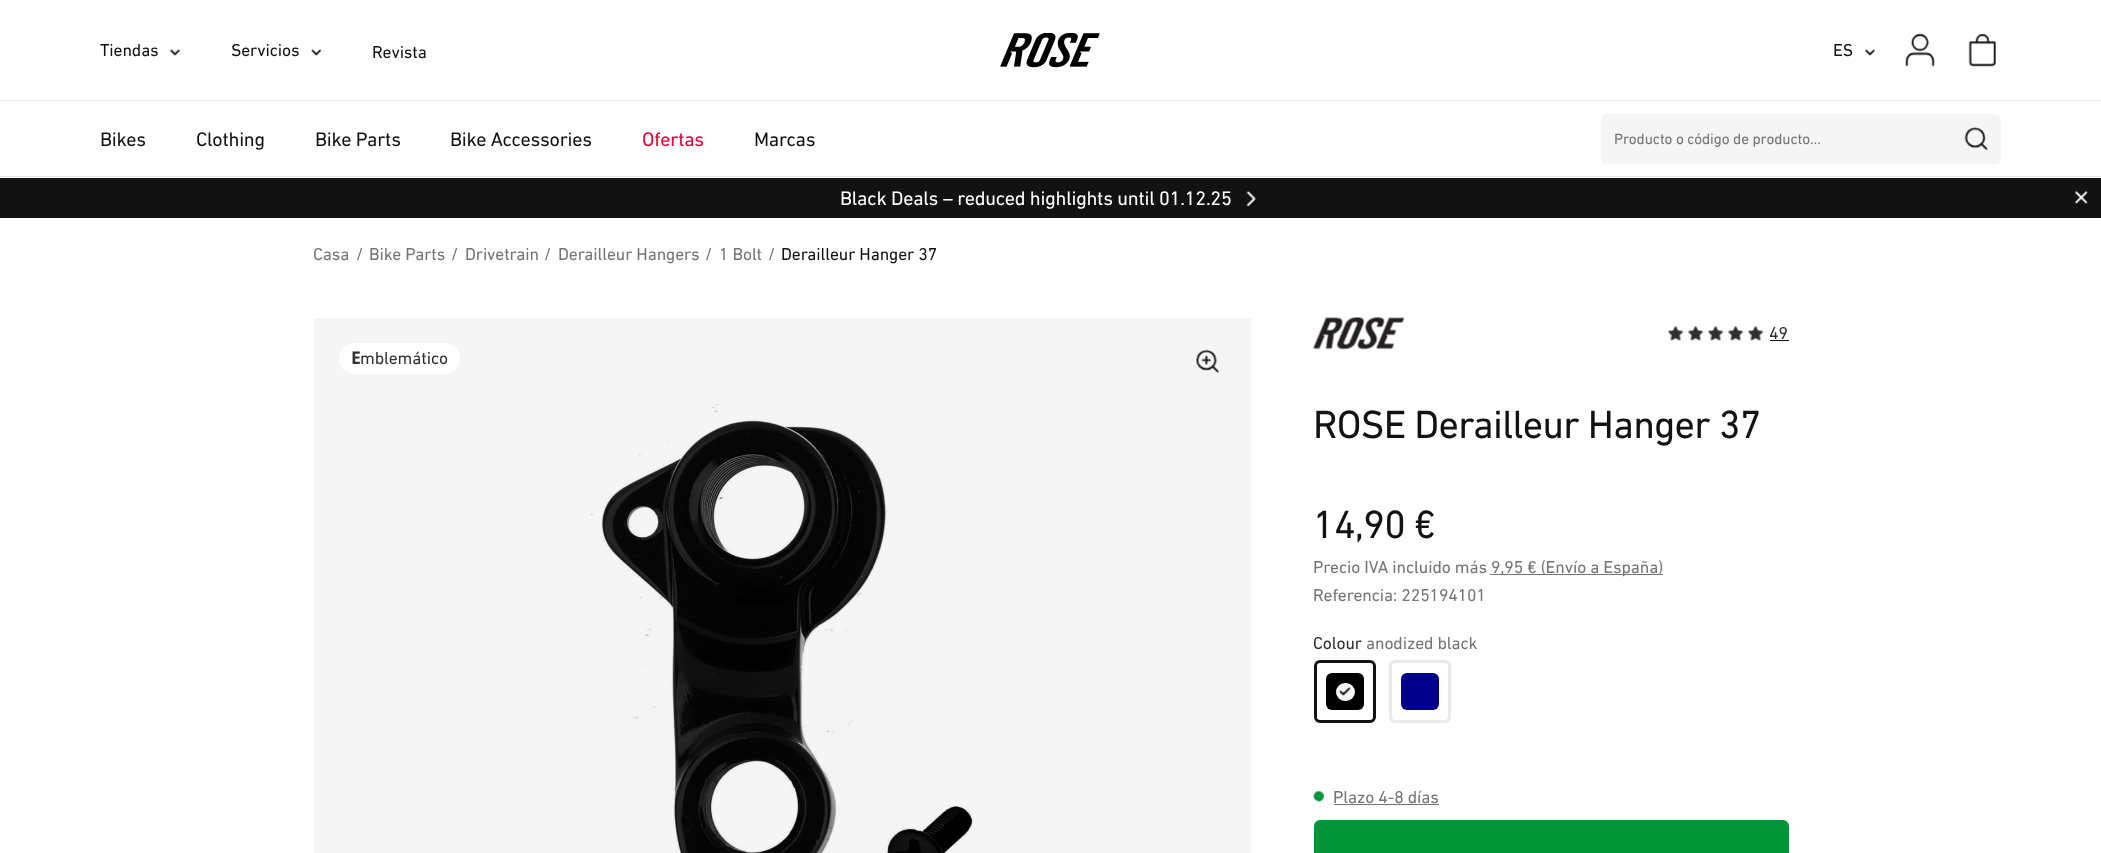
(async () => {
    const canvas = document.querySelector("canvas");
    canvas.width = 2101;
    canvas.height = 853;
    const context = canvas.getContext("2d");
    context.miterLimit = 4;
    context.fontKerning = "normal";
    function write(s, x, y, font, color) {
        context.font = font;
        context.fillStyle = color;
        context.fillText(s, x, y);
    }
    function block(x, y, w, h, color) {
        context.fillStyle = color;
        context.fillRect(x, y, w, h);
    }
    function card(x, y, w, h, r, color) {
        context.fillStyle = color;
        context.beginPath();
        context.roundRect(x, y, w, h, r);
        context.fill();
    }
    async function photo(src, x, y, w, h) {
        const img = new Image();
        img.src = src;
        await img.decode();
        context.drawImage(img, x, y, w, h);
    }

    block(0, 0, 2101, 853, "rgb(255, 255, 255)");
    block(0, 100, 2101, 1, "rgb(233, 233, 233)");
    context.letterSpacing = "-0.1px";
    write("Tiendas", 100, 56, "17.5px 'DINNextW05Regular'", "rgb(18, 18, 18)");
    await photo("media/1.png", 169, 49, 11, 7);
    write("Servicios", 231, 56, "17.5px 'DINNextW05Regular'", "rgb(18, 18, 18)");
    await photo("media/2.png", 311, 49, 11, 7);
    write("Revista", 372, 58, "17.5px 'DINNextW05Regular'", "rgb(18, 18, 18)");
    await photo("media/3.png", 1000, 33, 100, 35);
    write("ES", 1833, 56, "17.5px 'DINNextW05Regular'", "rgb(18, 18, 18)");
    await photo("media/1.png", 1864, 49, 11, 7);
    await photo("media/4.png", 1905, 33, 30, 34);
    await photo("media/5.png", 1968, 33, 28, 34);
    block(0, 176, 2101, 1, "rgb(233, 233, 233)");
    context.letterSpacing = "-0.25px";
    write("Bikes", 100, 146, "20px 'DINNextW05Regular'", "rgb(18, 18, 18)");
    write("Clothing", 196, 146, "20px 'DINNextW05Regular'", "rgb(18, 18, 18)");
    write("Bike Parts", 315, 146, "20px 'DINNextW05Regular'", "rgb(18, 18, 18)");
    write("Bike Accessories", 450, 146, "20px 'DINNextW05Regular'", "rgb(18, 18, 18)");
    write("Ofertas", 642, 146, "20px 'DINNextW05Regular'", "rgb(235, 0, 55)");
    write("Marcas", 754, 146, "20px 'DINNextW05Regular'", "rgb(18, 18, 18)");
    card(1601, 114, 400, 50, 6, "rgb(245, 245, 245)");
    context.letterSpacing = "-0.1px";
    write("Producto o código de producto…", 1614, 144, "15.25px 'DINNextW05Regular'", "rgb(117, 117, 117)");
    await photo("media/6.png", 1964, 127, 24, 24);
    block(0, 178, 2101, 40, "rgb(18, 18, 18)");
    context.letterSpacing = "-0.25px";
    write("Black Deals – reduced highlights until 01.12.25", 840, 205, "20px 'DINNextW05Regular'", "rgb(255, 255, 255)");
    await photo("media/7.png", 1246, 191, 10, 16);
    await photo("media/8.png", 2074, 191, 14, 13);
    context.letterSpacing = "-0.1px";
    write("Casa", 313, 260, "17.5px 'DINNextW05Regular'", "rgb(117, 117, 117)");
    write("/", 356, 260, "17.5px 'DINNextW05Regular'", "rgb(117, 117, 117)");
    write("Bike Parts", 369, 260, "17.5px 'DINNextW05Regular'", "rgb(117, 117, 117)");
    write("/", 451, 260, "17.5px 'DINNextW05Regular'", "rgb(117, 117, 117)");
    write("Drivetrain", 465, 260, "17.5px 'DINNextW05Regular'", "rgb(117, 117, 117)");
    write("/", 544, 260, "17.5px 'DINNextW05Regular'", "rgb(117, 117, 117)");
    write("Derailleur Hangers", 558, 260, "17.5px 'DINNextW05Regular'", "rgb(117, 117, 117)");
    write("/", 705, 260, "17.5px 'DINNextW05Regular'", "rgb(117, 117, 117)");
    write("1 Bolt", 719, 260, "17.5px 'DINNextW05Regular'", "rgb(117, 117, 117)");
    write("/", 768, 260, "17.5px 'DINNextW05Regular'", "rgb(117, 117, 117)");
    write("Derailleur Hanger 37", 781, 260, "17.5px 'DINNextW05Regular'", "rgb(18, 18, 18)");
    await photo("media/9.png", 591, 404, 382, 449);
    block(314, 318, 937, 535, "rgba(0, 0, 0, 0.04)");
    await photo("media/10.png", 1196, 349, 23, 24);
    card(339, 343, 121, 31, 15.5, "rgb(255, 255, 255)");
    write("E", 351, 364, "bold 17.5px Noto Sans", "rgb(48, 48, 48)");
    write("mblemático", 360, 364, "17.5px 'DINNextW05Regular'", "rgb(48, 48, 48)");
    await photo("media/11.png", 1313, 317, 92, 33);
    await photo("media/12.png", 1668, 326, 16, 15);
    await photo("media/12.png", 1688, 326, 16, 15);
    await photo("media/12.png", 1708, 326, 16, 15);
    await photo("media/12.png", 1728, 326, 16, 15);
    await photo("media/12.png", 1748, 326, 16, 15);
    write("49", 1769, 339, "17.5px 'DINNextW05Regular'", "rgb(48, 48, 48)");
    block(1770, 340, 19, 1, "rgb(18, 18, 18)");
    context.letterSpacing = "-0.75px";
    write("ROSE Derailleur Hanger 37", 1313, 438, "40px 'DINNextW05Regular'", "rgb(18, 18, 18)");
    write("14,90 €", 1313, 538, "40px 'DINNextW05Regular'", "rgb(18, 18, 18)");
    context.letterSpacing = "-0.1px";
    write("Precio IVA incluido más", 1313, 573, "17.5px 'DINNextW05Regular'", "rgb(117, 117, 117)");
    block(1490, 574, 173, 1, "rgb(117, 117, 117)");
    write("9,95 € (Envío a España)", 1491, 573, "17.5px 'DINNextW05Regular'", "rgb(117, 117, 117)");
    write("Referencia: 225194101", 1313, 601, "17.5px 'DINNextW05Regular'", "rgb(117, 117, 117)");
    write("Colour", 1313, 649, "17.5px 'DINNextW05Regular'", "rgb(48, 48, 48)");
    write("anodized black", 1366, 649, "17.5px 'DINNextW05Regular'", "rgb(117, 117, 117)");
    context.beginPath();
    context.roundRect(1315.5, 661.5, 59, 60, 4.5);
    context.strokeStyle = "rgb(18, 18, 18)";
    context.lineWidth = 3;
    context.stroke();
    card(1326, 673, 38, 37, 6, "rgb(0, 0, 0)");
    card(1336, 683, 19, 18, 9, "rgb(245, 245, 245)");
    await photo("media/13.png", 1339, 687, 12, 9);
    context.beginPath();
    context.roundRect(1390.5, 661.5, 59, 60, 4.5);
    context.strokeStyle = "rgb(233, 233, 233)";
    context.stroke();
    card(1401, 673, 38, 37, 6, "rgb(0, 0, 139)");
    await photo("media/14.png", 1313, 791, 11, 11);
    write("Plazo 4-8 días", 1333, 803, "17.5px 'DINNextW05Regular'", "rgb(117, 117, 117)");
    block(1334, 804, 105, 1, "rgb(117, 117, 117)");
    context.fillStyle = "rgb(2, 149, 57)";
    context.beginPath();
    context.roundRect(1315.5, 821.5, 472, 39, 4.5);
    context.fill();
    context.strokeStyle = "rgb(2, 149, 57)";
    context.stroke();
})();
